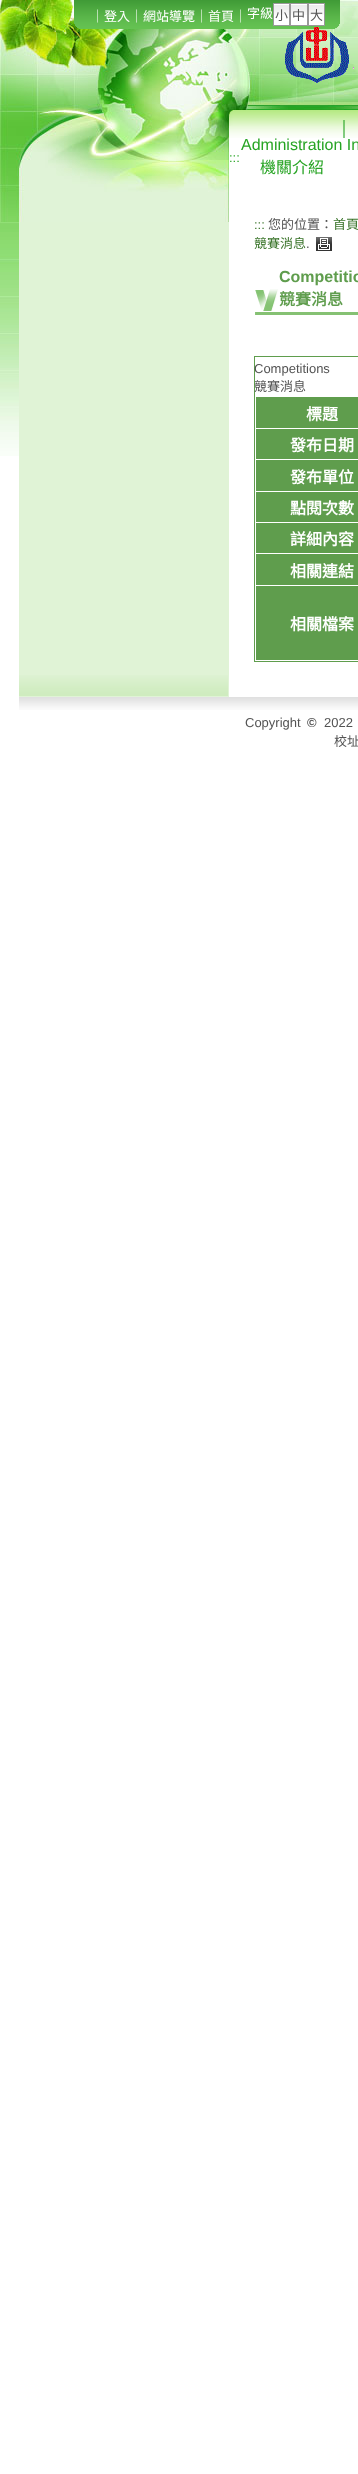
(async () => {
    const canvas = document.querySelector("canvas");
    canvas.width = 358;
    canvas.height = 2474;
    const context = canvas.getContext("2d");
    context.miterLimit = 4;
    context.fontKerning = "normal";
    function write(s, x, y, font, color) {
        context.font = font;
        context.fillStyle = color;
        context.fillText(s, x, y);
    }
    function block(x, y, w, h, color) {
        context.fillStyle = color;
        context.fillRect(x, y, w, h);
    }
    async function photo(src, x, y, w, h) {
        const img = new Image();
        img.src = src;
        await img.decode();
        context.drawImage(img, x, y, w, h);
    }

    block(0, 0, 358, 2474, "rgb(255, 255, 255)");
    await photo("media/1.png", 0, 222, 19, 234);
    block(19, 222, 210, 475, "rgb(224, 243, 214)");
    await photo("media/2.png", 0, 0, 358, 222);
    await photo("media/3.png", 74, 0, 7, 29);
    await photo("media/4.png", 81, 0, 259, 29);
    write("｜登入｜網站導覽｜首頁｜", 91, 21, "13px Noto Sans CJK TC", "rgb(255, 255, 255)");
    write("字級", 247, 18, "13px Noto Sans CJK TC", "rgb(255, 255, 255)");
    block(274, 4, 15, 21, "rgb(255, 255, 255)");
    await photo("media/5.png", 274, 5, 15, 10);
    context.strokeStyle = "rgb(153, 153, 153)";
    context.strokeRect(273.5, 3.5, 16, 22);
    write("小", 275, 20, "13px Noto Sans CJK TC", "rgb(83, 83, 83)");
    block(291, 4, 16, 21, "rgb(255, 255, 255)");
    await photo("media/6.png", 291, 5, 16, 10);
    context.strokeRect(290.5, 3.5, 17, 22);
    write("中", 292, 20, "13px Noto Sans CJK TC", "rgb(83, 83, 83)");
    block(309, 4, 15, 21, "rgb(255, 255, 255)");
    await photo("media/5.png", 309, 5, 15, 10);
    context.strokeRect(308.5, 3.5, 16, 22);
    write("大", 310, 20, "13px Noto Sans CJK TC", "rgb(83, 83, 83)");
    await photo("media/7.png", 285, 27, 69, 56);
    block(229, 138, 129, 84, "rgb(255, 255, 255)");
    await photo("media/8.png", 229, 110, 129, 28);
    await photo("media/9.png", 229, 110, 4, 16);
    block(343, 120, 2, 18, "rgba(37, 164, 36, 0.56)");
    write(":::", 229, 162, "13px Liberation Sans", "rgb(39, 164, 36)");
    write("Administration In", 241, 150, "16px Liberation Sans", "rgb(39, 164, 36)");
    write("機關介紹", 260, 173, "16px Noto Sans CJK TC", "rgb(39, 164, 36)");
    write(":::", 254, 229, "13px Liberation Sans", "rgb(56, 115, 40)");
    write("您的位置：", 268, 229, "13px Noto Sans CJK TC", "rgb(83, 83, 83)");
    write("首頁", 333, 229, "13px Noto Sans CJK TC", "rgb(56, 115, 40)");
    write("競賽消息", 254, 248, "13px Noto Sans CJK TC", "rgb(56, 115, 40)");
    write(".", 306, 248, "13px Liberation Sans", "rgb(83, 83, 83)");
    await photo("media/10.png", 316, 237, 16, 14);
    await photo("media/11.png", 255, 289, 103, 26);
    write("Competitio", 279, 282, "bold 16px Liberation Sans", "rgb(95, 157, 77)");
    write("競賽消息", 279, 305, "bold 16px Noto Sans CJK TC", "rgb(95, 157, 77)");
    context.strokeStyle = "rgb(95, 157, 77)";
    context.strokeRect(254.5, 356.5, 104, 305);
    write("Competitions", 254, 373, "13px Liberation Sans", "rgb(83, 83, 83)");
    write("競賽消息", 254, 391, "13px Noto Sans CJK TC", "rgb(83, 83, 83)");
    block(256, 397, 102, 31, "rgb(95, 157, 77)");
    write("標題", 306, 420, "bold 16px Noto Sans CJK TC", "rgb(255, 255, 255)");
    block(256, 429, 102, 30, "rgb(95, 157, 77)");
    write("發布日期", 290, 451, "bold 16px Noto Sans CJK TC", "rgb(255, 255, 255)");
    block(256, 460, 102, 31, "rgb(95, 157, 77)");
    write("發布單位", 290, 483, "bold 16px Noto Sans CJK TC", "rgb(255, 255, 255)");
    block(256, 492, 102, 30, "rgb(95, 157, 77)");
    write("點閱次數", 290, 514, "bold 16px Noto Sans CJK TC", "rgb(255, 255, 255)");
    block(256, 523, 102, 30, "rgb(95, 157, 77)");
    write("詳細內容", 290, 545, "bold 16px Noto Sans CJK TC", "rgb(255, 255, 255)");
    block(256, 554, 102, 31, "rgb(95, 157, 77)");
    write("相關連結", 290, 577, "bold 16px Noto Sans CJK TC", "rgb(255, 255, 255)");
    block(256, 586, 102, 74, "rgb(95, 157, 77)");
    write("相關檔案", 290, 630, "bold 16px Noto Sans CJK TC", "rgb(255, 255, 255)");
    await photo("media/12.png", 19, 675, 209, 21);
    await photo("media/13.png", 19, 697, 339, 13);
    write("Copyright", 245, 727, "13px Liberation Sans", "rgb(83, 83, 83)");
    write("©", 307, 727, "bold 13px Liberation Sans", "rgb(83, 83, 83)");
    write("2022", 324, 727, "13px Liberation Sans", "rgb(83, 83, 83)");
    write("校址", 334, 746, "13px Noto Sans CJK TC", "rgb(83, 83, 83)");
})();
